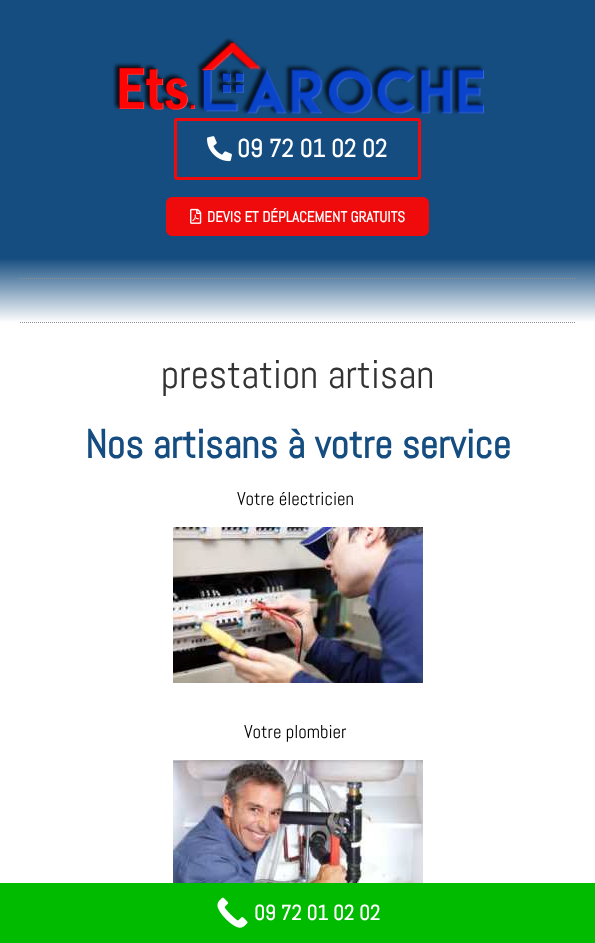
(async () => {
    const canvas = document.querySelector("canvas");
    canvas.width = 595;
    canvas.height = 943;
    const context = canvas.getContext("2d");
    context.miterLimit = 4;
    context.fontKerning = "normal";
    function write(s, x, y, font, color) {
        context.font = font;
        context.fillStyle = color;
        context.fillText(s, x, y);
    }
    function block(x, y, w, h, color) {
        context.fillStyle = color;
        context.fillRect(x, y, w, h);
    }
    async function photo(src, x, y, w, h) {
        const img = new Image();
        img.src = src;
        await img.decode();
        context.drawImage(img, x, y, w, h);
    }
    let gradient;

    block(0, 0, 595, 943, "rgb(255, 255, 255)");
    block(0, 0, 595, 258, "rgb(21, 77, 128)");
    await photo("media/1.png", 113, 38, 371, 77);
    context.beginPath();
    context.roundRect(175.5, 119.5, 244, 59, 1.5);
    context.strokeStyle = "rgb(239, 11, 11)";
    context.lineWidth = 3;
    context.stroke();
    await photo("media/2.png", 207, 136, 25, 26);
    write("09 72 01 02 02", 237, 157, "bold 25px Abel", "rgb(255, 255, 255)");
    context.fillStyle = "rgb(239, 11, 11)";
    context.beginPath();
    context.roundRect(165, 196, 265, 41, 7);
    context.fill();
    context.strokeStyle = "rgb(21, 77, 128)";
    context.lineWidth = 2;
    context.stroke();
    await photo("media/3.png", 190, 208, 12, 16);
    write("DEVIS ET DÉPLACEMENT GRATUITS", 207, 222, "bold 15px Abel", "rgb(255, 255, 255)");
    gradient = context.createLinearGradient(298, 258, 298, 343);
    gradient.addColorStop(0, "rgb(21, 77, 128)");
    gradient.addColorStop(0.76, "rgb(255, 255, 255)");
    context.fillStyle = gradient;
    context.fillRect(0, 258, 595, 64);
    context.beginPath();
    context.moveTo(20, 278.5);
    context.lineTo(575, 278.5);
    context.strokeStyle = "rgb(142, 142, 142)";
    context.lineWidth = 1;
    context.setLineDash([1, 1]);
    context.stroke();
    context.beginPath();
    context.moveTo(20, 322.5);
    context.lineTo(575, 322.5);
    context.stroke();
    write("prestation artisan", 161, 388, "40px Abel", "rgb(51, 51, 51)");
    write("Nos artisans à votre service", 85, 458, "bold 40px Abel", "rgb(21, 77, 128)");
    write("Votre électricien", 237, 505, "18.75px Abel", "rgb(0, 0, 0)");
    await photo("media/4.png", 173, 527, 250, 156);
    write("Votre plombier", 244, 738, "18.75px Abel", "rgb(0, 0, 0)");
    await photo("media/5.png", 173, 760, 250, 123);
    block(0, 883, 595, 60, "rgb(0, 187, 0)");
    await photo("media/6.png", 217, 897, 31, 31);
    write("09 72 01 02 02", 254, 920, "bold 21px Abel", "rgb(255, 255, 255)");
})();
